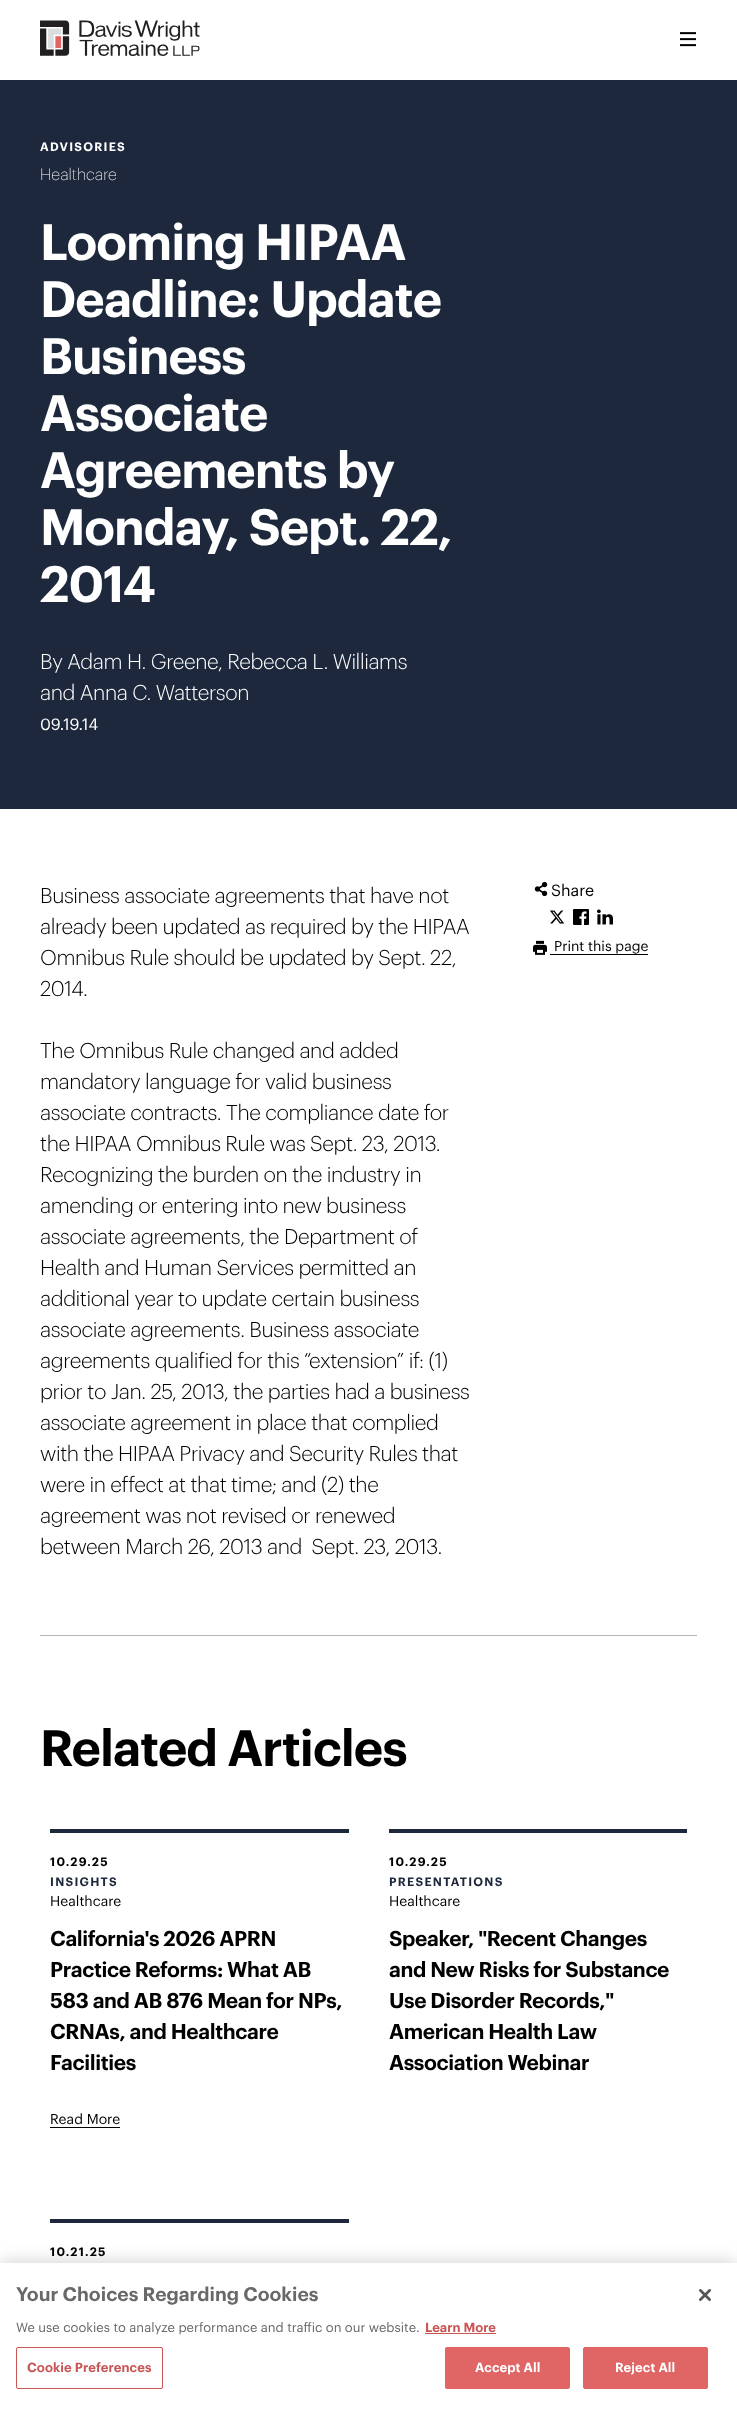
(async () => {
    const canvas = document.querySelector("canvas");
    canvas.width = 737;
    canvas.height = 2409;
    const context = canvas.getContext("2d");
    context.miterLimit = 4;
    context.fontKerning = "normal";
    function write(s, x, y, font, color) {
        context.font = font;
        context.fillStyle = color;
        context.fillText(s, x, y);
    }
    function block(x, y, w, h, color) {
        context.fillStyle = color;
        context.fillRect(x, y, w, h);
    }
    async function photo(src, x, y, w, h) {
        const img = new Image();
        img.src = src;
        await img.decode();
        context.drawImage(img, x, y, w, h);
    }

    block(0, 0, 737, 2409, "rgb(255, 255, 255)");
    await photo("media/1.png", 40, 20, 160, 36);
    await photo("media/2.png", 680, 32, 16, 15);
    block(0, 80, 737, 729, "rgb(30, 40, 60)");
    context.letterSpacing = "1.25px";
    write("ADVISORIES", 40, 151, "600 12px Graphik", "rgb(255, 255, 255)");
    context.letterSpacing = "0px";
    write("Healthcare", 40, 180, "200 16px Graphik", "rgb(255, 255, 255)");
    context.letterSpacing = "-1px";
    write("Looming HIPAA", 40, 260, "600 50px Graphik", "rgb(255, 255, 255)");
    write("Deadline: Update", 40, 317, "600 50px Graphik", "rgb(255, 255, 255)");
    write("Business", 40, 374, "600 50px Graphik", "rgb(255, 255, 255)");
    write("Associate", 40, 431, "600 50px Graphik", "rgb(255, 255, 255)");
    write("Agreements by", 40, 488, "600 50px Graphik", "rgb(255, 255, 255)");
    write("Monday, Sept. 22,", 40, 545, "600 50px Graphik", "rgb(255, 255, 255)");
    write("2014", 40, 602, "600 50px Graphik", "rgb(255, 255, 255)");
    context.letterSpacing = "-0.4px";
    write("By Adam H. Greene, Rebecca L. Williams", 40, 669, "300 21px Graphik", "rgb(255, 255, 255)");
    write("and Anna C. Watterson", 40, 700, "300 21px Graphik", "rgb(255, 255, 255)");
    context.letterSpacing = "0px";
    write("09.19.14", 40, 730, "16px Graphik", "rgb(255, 255, 255)");
    context.letterSpacing = "-0.4px";
    write("Business associate agreements that have not", 40, 903, "300 21px Graphik", "rgb(0, 0, 0)");
    write("already been updated as required by the HIPAA", 40, 934, "300 21px Graphik", "rgb(0, 0, 0)");
    write("Omnibus Rule should be updated by Sept. 22,", 40, 965, "300 21px Graphik", "rgb(0, 0, 0)");
    write("2014.", 40, 996, "300 21px Graphik", "rgb(0, 0, 0)");
    write("The Omnibus Rule changed and added", 40, 1058, "300 21px Graphik", "rgb(0, 0, 0)");
    write("mandatory language for valid business", 40, 1089, "300 21px Graphik", "rgb(0, 0, 0)");
    write("associate contracts. The compliance date for", 40, 1120, "300 21px Graphik", "rgb(0, 0, 0)");
    write("the HIPAA Omnibus Rule was Sept. 23, 2013.", 40, 1151, "300 21px Graphik", "rgb(0, 0, 0)");
    write("Recognizing the burden on the industry in", 40, 1182, "300 21px Graphik", "rgb(0, 0, 0)");
    write("amending or entering into new business", 40, 1213, "300 21px Graphik", "rgb(0, 0, 0)");
    write("associate agreements, the Department of", 40, 1244, "300 21px Graphik", "rgb(0, 0, 0)");
    write("Health and Human Services permitted an", 40, 1275, "300 21px Graphik", "rgb(0, 0, 0)");
    write("additional year to update certain business", 40, 1306, "300 21px Graphik", "rgb(0, 0, 0)");
    write("associate agreements. Business associate", 40, 1337, "300 21px Graphik", "rgb(0, 0, 0)");
    write("agreements qualified for this “extension” if: (1)", 40, 1368, "300 21px Graphik", "rgb(0, 0, 0)");
    write("prior to Jan. 25, 2013, the parties had a business", 40, 1399, "300 21px Graphik", "rgb(0, 0, 0)");
    write("associate agreement in place that complied", 40, 1430, "300 21px Graphik", "rgb(0, 0, 0)");
    write("with the HIPAA Privacy and Security Rules that", 40, 1461, "300 21px Graphik", "rgb(0, 0, 0)");
    write("were in effect at that time; and (2) the", 40, 1492, "300 21px Graphik", "rgb(0, 0, 0)");
    write("agreement was not revised or renewed", 40, 1523, "300 21px Graphik", "rgb(0, 0, 0)");
    write("between March 26, 2013 and  Sept. 23, 2013.", 40, 1554, "300 21px Graphik", "rgb(0, 0, 0)");
    await photo("media/3.png", 534, 881, 14, 16);
    context.letterSpacing = "0px";
    write("Share", 551, 896, "16px Graphik", "rgb(0, 0, 0)");
    await photo("media/4.png", 550, 910, 15, 14);
    await photo("media/5.png", 573, 909, 16, 16);
    await photo("media/6.png", 597, 909, 16, 16);
    await photo("media/7.png", 533, 940, 14, 15);
    write("Print this page", 554, 951, "14px Graphik", "rgb(0, 0, 0)");
    block(550, 954, 98, 1, "rgb(0, 0, 0)");
    block(40, 1635, 657, 1, "rgb(180, 180, 180)");
    context.letterSpacing = "-1px";
    write("Related Articles", 40, 1766, "600 50px Graphik", "rgb(0, 0, 0)");
    block(50, 1829, 299, 4, "rgb(30, 40, 60)");
    context.letterSpacing = "1.25px";
    write("10.29.25", 50, 1866, "600 12px Graphik", "rgb(0, 0, 0)");
    write("INSIGHTS", 50, 1886, "600 12px Graphik", "rgb(30, 40, 60)");
    context.letterSpacing = "0px";
    write("Healthcare", 50, 1906, "14px Graphik", "rgb(0, 0, 0)");
    context.letterSpacing = "-0.4px";
    write("California's 2026 APRN", 50, 1946, "600 21px Graphik", "rgb(0, 0, 0)");
    write("Practice Reforms: What AB", 50, 1977, "600 21px Graphik", "rgb(0, 0, 0)");
    write("583 and AB 876 Mean for NPs,", 50, 2008, "600 21px Graphik", "rgb(0, 0, 0)");
    write("CRNAs, and Healthcare", 50, 2039, "600 21px Graphik", "rgb(0, 0, 0)");
    write("Facilities", 50, 2070, "600 21px Graphik", "rgb(0, 0, 0)");
    context.letterSpacing = "0px";
    write("Read More", 50, 2124, "14px Graphik", "rgb(0, 0, 0)");
    block(50, 2127, 70, 1, "rgb(0, 0, 0)");
    block(389, 1829, 298, 4, "rgb(30, 40, 60)");
    context.letterSpacing = "1.25px";
    write("10.29.25", 389, 1866, "600 12px Graphik", "rgb(0, 0, 0)");
    write("PRESENTATIONS", 389, 1886, "600 12px Graphik", "rgb(30, 40, 60)");
    context.letterSpacing = "0px";
    write("Healthcare", 389, 1906, "14px Graphik", "rgb(0, 0, 0)");
    context.letterSpacing = "-0.4px";
    write("Speaker, \"Recent Changes", 389, 1946, "600 21px Graphik", "rgb(0, 0, 0)");
    write("and New Risks for Substance", 389, 1977, "600 21px Graphik", "rgb(0, 0, 0)");
    write("Use Disorder Records,\"", 389, 2008, "600 21px Graphik", "rgb(0, 0, 0)");
    write("American Health Law", 389, 2039, "600 21px Graphik", "rgb(0, 0, 0)");
    write("Association Webinar", 389, 2070, "600 21px Graphik", "rgb(0, 0, 0)");
    block(50, 2219, 299, 4, "rgb(30, 40, 60)");
    context.letterSpacing = "1.25px";
    write("10.21.25", 50, 2256, "600 12px Graphik", "rgb(0, 0, 0)");
    context.fillStyle = "rgba(0, 0, 0, 0.2)";
    context.filter = "blur(9px)";
    context.beginPath();
    context.rect(0, 2263, 737, 146);
    context.fill();
    context.filter = "none";
    block(0, 2263, 737, 146, "rgb(255, 255, 255)");
    context.letterSpacing = "0px";
    write("Your Choices Regarding Cookies", 16, 2301, "600 19.25px Graphik", "rgb(105, 105, 105)");
    write("We use cookies to analyze performance and traffic on our website.", 16, 2332, "13px Graphik", "rgb(105, 105, 105)");
    write("Learn More", 425, 2332, "600 13px Graphik", "rgb(201, 85, 85)");
    block(425, 2333, 71, 1, "rgb(201, 85, 85)");
    context.beginPath();
    context.roundRect(16.5, 2347.5, 146, 41, 1.5);
    context.strokeStyle = "rgb(201, 85, 85)";
    context.stroke();
    context.letterSpacing = "0.1px";
    write("Cookie Preferences", 27, 2372, "600 13px Graphik", "rgb(201, 85, 85)");
    context.fillStyle = "rgb(224, 101, 101)";
    context.beginPath();
    context.roundRect(445.5, 2347.5, 124, 41, 1.5);
    context.fill();
    context.strokeStyle = "rgb(224, 101, 101)";
    context.stroke();
    write("Accept All", 475, 2372, "600 13px Graphik", "rgb(255, 255, 255)");
    context.fillStyle = "rgb(224, 101, 101)";
    context.beginPath();
    context.roundRect(583.5, 2347.5, 124, 41, 1.5);
    context.fill();
    context.stroke();
    write("Reject All", 615, 2372, "600 13px Graphik", "rgb(255, 255, 255)");
    await photo("media/8.png", 699, 2289, 12, 12);
})();
